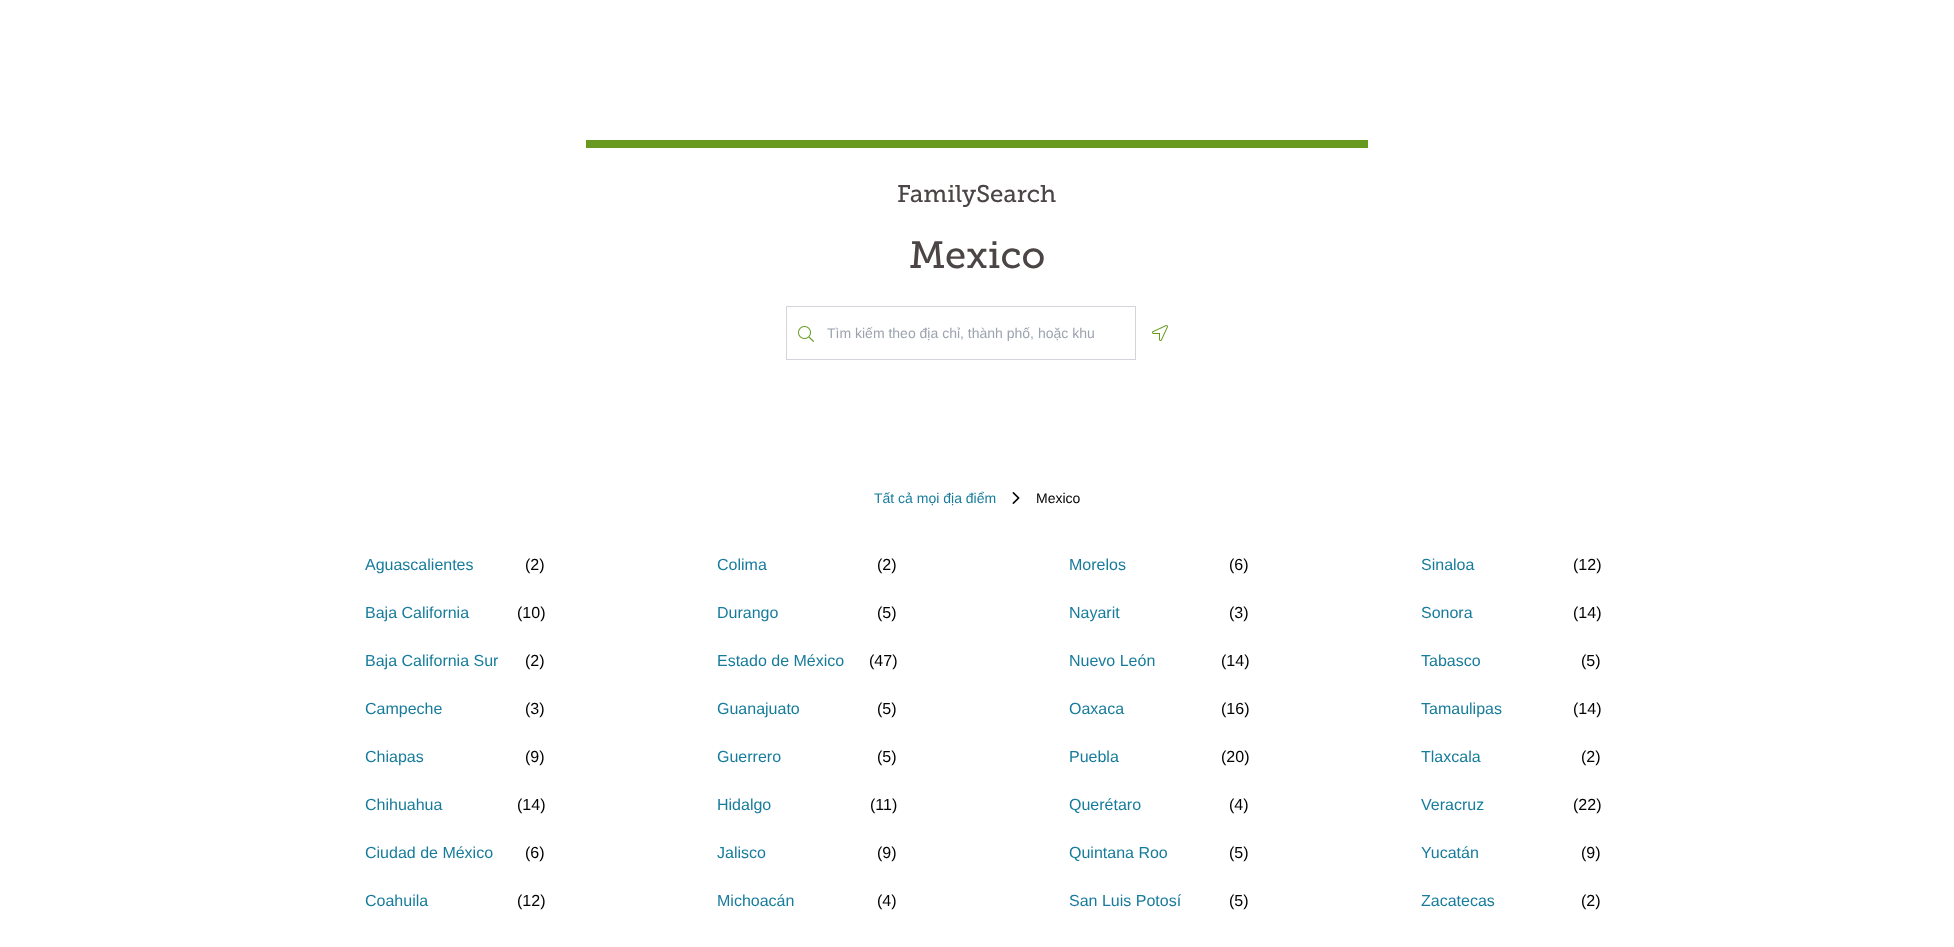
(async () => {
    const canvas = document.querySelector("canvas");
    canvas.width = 1954;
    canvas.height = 947;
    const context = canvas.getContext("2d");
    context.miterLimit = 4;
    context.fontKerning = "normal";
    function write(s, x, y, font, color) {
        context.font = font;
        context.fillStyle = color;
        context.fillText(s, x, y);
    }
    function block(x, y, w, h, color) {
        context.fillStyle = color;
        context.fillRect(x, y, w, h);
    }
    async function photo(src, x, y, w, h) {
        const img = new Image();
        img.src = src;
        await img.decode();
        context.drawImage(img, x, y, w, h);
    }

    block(0, 0, 1954, 947, "rgb(255, 255, 255)");
    block(586, 140, 782, 8, "rgb(103, 154, 30)");
    write("FamilySearch", 897, 202, "24px 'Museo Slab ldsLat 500'", "rgb(75, 69, 69)");
    write("Mexico", 909, 268, "38px 'Museo Slab ldsLat 500'", "rgb(75, 69, 69)");
    context.strokeStyle = "rgb(209, 213, 219)";
    context.strokeRect(786.5, 306.5, 349, 53);
    await photo("media/1.png", 798, 326, 16, 16);
    write("Tìm kiếm theo địa chỉ, thành phố, hoặc khu", 827, 338, "14px Liberation Sans", "rgb(156, 163, 175)");
    await photo("media/2.png", 1152, 325, 16, 16);
    write("Tất cả mọi địa điểm", 874, 503, "14px Liberation Sans", "rgb(23, 124, 156)");
    await photo("media/3.png", 1012, 492, 8, 12);
    write("Mexico", 1036, 503, "14px Liberation Sans", "rgb(0, 0, 0)");
    write("Aguascalientes", 365, 570, "16px Liberation Sans", "rgb(23, 124, 156)");
    write("(2)", 525, 570, "16px Liberation Sans", "rgb(0, 0, 0)");
    write("Colima", 717, 570, "16px Liberation Sans", "rgb(23, 124, 156)");
    write("(2)", 877, 570, "16px Liberation Sans", "rgb(0, 0, 0)");
    write("Morelos", 1069, 570, "16px Liberation Sans", "rgb(23, 124, 156)");
    write("(6)", 1229, 570, "16px Liberation Sans", "rgb(0, 0, 0)");
    write("Sinaloa", 1421, 570, "16px Liberation Sans", "rgb(23, 124, 156)");
    write("(12)", 1573, 570, "16px Liberation Sans", "rgb(0, 0, 0)");
    write("Baja California", 365, 618, "16px Liberation Sans", "rgb(23, 124, 156)");
    write("(10)", 517, 618, "16px Liberation Sans", "rgb(0, 0, 0)");
    write("Durango", 717, 618, "16px Liberation Sans", "rgb(23, 124, 156)");
    write("(5)", 877, 618, "16px Liberation Sans", "rgb(0, 0, 0)");
    write("Nayarit", 1069, 618, "16px Liberation Sans", "rgb(23, 124, 156)");
    write("(3)", 1229, 618, "16px Liberation Sans", "rgb(0, 0, 0)");
    write("Sonora", 1421, 618, "16px Liberation Sans", "rgb(23, 124, 156)");
    write("(14)", 1573, 618, "16px Liberation Sans", "rgb(0, 0, 0)");
    write("Baja California Sur", 365, 666, "16px Liberation Sans", "rgb(23, 124, 156)");
    write("(2)", 525, 666, "16px Liberation Sans", "rgb(0, 0, 0)");
    write("Estado de México", 717, 666, "16px Liberation Sans", "rgb(23, 124, 156)");
    write("(47)", 869, 666, "16px Liberation Sans", "rgb(0, 0, 0)");
    write("Nuevo León", 1069, 666, "16px Liberation Sans", "rgb(23, 124, 156)");
    write("(14)", 1221, 666, "16px Liberation Sans", "rgb(0, 0, 0)");
    write("Tabasco", 1421, 666, "16px Liberation Sans", "rgb(23, 124, 156)");
    write("(5)", 1581, 666, "16px Liberation Sans", "rgb(0, 0, 0)");
    write("Campeche", 365, 714, "16px Liberation Sans", "rgb(23, 124, 156)");
    write("(3)", 525, 714, "16px Liberation Sans", "rgb(0, 0, 0)");
    write("Guanajuato", 717, 714, "16px Liberation Sans", "rgb(23, 124, 156)");
    write("(5)", 877, 714, "16px Liberation Sans", "rgb(0, 0, 0)");
    write("Oaxaca", 1069, 714, "16px Liberation Sans", "rgb(23, 124, 156)");
    write("(16)", 1221, 714, "16px Liberation Sans", "rgb(0, 0, 0)");
    write("Tamaulipas", 1421, 714, "16px Liberation Sans", "rgb(23, 124, 156)");
    write("(14)", 1573, 714, "16px Liberation Sans", "rgb(0, 0, 0)");
    write("Chiapas", 365, 762, "16px Liberation Sans", "rgb(23, 124, 156)");
    write("(9)", 525, 762, "16px Liberation Sans", "rgb(0, 0, 0)");
    write("Guerrero", 717, 762, "16px Liberation Sans", "rgb(23, 124, 156)");
    write("(5)", 877, 762, "16px Liberation Sans", "rgb(0, 0, 0)");
    write("Puebla", 1069, 762, "16px Liberation Sans", "rgb(23, 124, 156)");
    write("(20)", 1221, 762, "16px Liberation Sans", "rgb(0, 0, 0)");
    write("Tlaxcala", 1421, 762, "16px Liberation Sans", "rgb(23, 124, 156)");
    write("(2)", 1581, 762, "16px Liberation Sans", "rgb(0, 0, 0)");
    write("Chihuahua", 365, 810, "16px Liberation Sans", "rgb(23, 124, 156)");
    write("(14)", 517, 810, "16px Liberation Sans", "rgb(0, 0, 0)");
    write("Hidalgo", 717, 810, "16px Liberation Sans", "rgb(23, 124, 156)");
    write("(11)", 870, 810, "16px Liberation Sans", "rgb(0, 0, 0)");
    write("Querétaro", 1069, 810, "16px Liberation Sans", "rgb(23, 124, 156)");
    write("(4)", 1229, 810, "16px Liberation Sans", "rgb(0, 0, 0)");
    write("Veracruz", 1421, 810, "16px Liberation Sans", "rgb(23, 124, 156)");
    write("(22)", 1573, 810, "16px Liberation Sans", "rgb(0, 0, 0)");
    write("Ciudad de México", 365, 858, "16px Liberation Sans", "rgb(23, 124, 156)");
    write("(6)", 525, 858, "16px Liberation Sans", "rgb(0, 0, 0)");
    write("Jalisco", 717, 858, "16px Liberation Sans", "rgb(23, 124, 156)");
    write("(9)", 877, 858, "16px Liberation Sans", "rgb(0, 0, 0)");
    write("Quintana Roo", 1069, 858, "16px Liberation Sans", "rgb(23, 124, 156)");
    write("(5)", 1229, 858, "16px Liberation Sans", "rgb(0, 0, 0)");
    write("Yucatán", 1421, 858, "16px Liberation Sans", "rgb(23, 124, 156)");
    write("(9)", 1581, 858, "16px Liberation Sans", "rgb(0, 0, 0)");
    write("Coahuila", 365, 906, "16px Liberation Sans", "rgb(23, 124, 156)");
    write("(12)", 517, 906, "16px Liberation Sans", "rgb(0, 0, 0)");
    write("Michoacán", 717, 906, "16px Liberation Sans", "rgb(23, 124, 156)");
    write("(4)", 877, 906, "16px Liberation Sans", "rgb(0, 0, 0)");
    write("San Luis Potosí", 1069, 906, "16px Liberation Sans", "rgb(23, 124, 156)");
    write("(5)", 1229, 906, "16px Liberation Sans", "rgb(0, 0, 0)");
    write("Zacatecas", 1421, 906, "16px Liberation Sans", "rgb(23, 124, 156)");
    write("(2)", 1581, 906, "16px Liberation Sans", "rgb(0, 0, 0)");
})();
